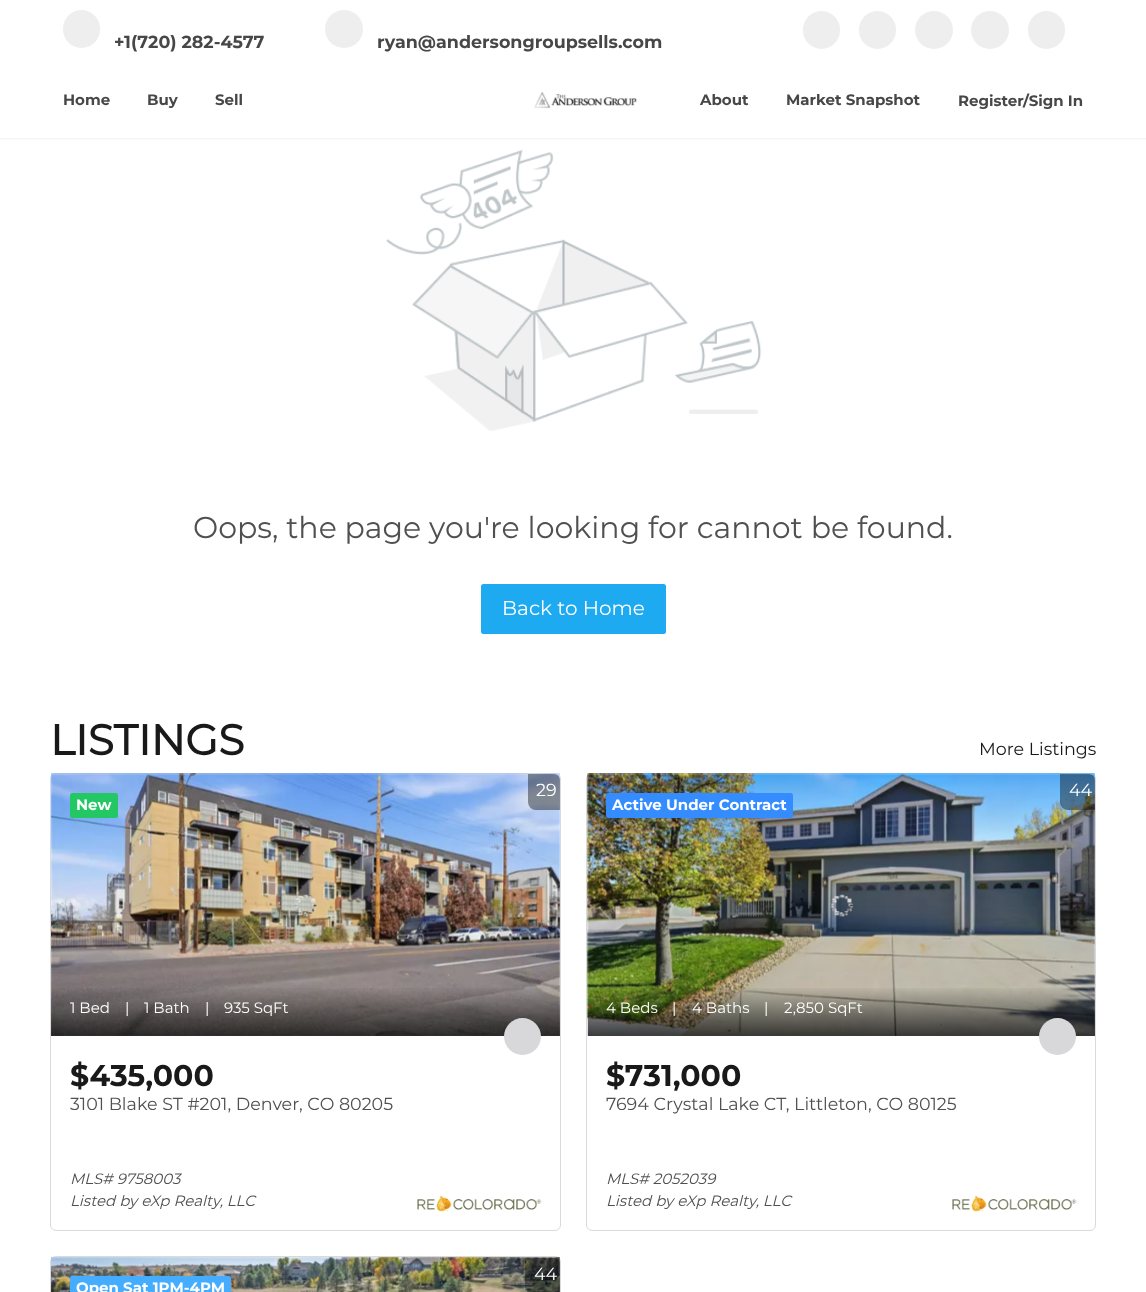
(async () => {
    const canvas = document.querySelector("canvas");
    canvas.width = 1146;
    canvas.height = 1292;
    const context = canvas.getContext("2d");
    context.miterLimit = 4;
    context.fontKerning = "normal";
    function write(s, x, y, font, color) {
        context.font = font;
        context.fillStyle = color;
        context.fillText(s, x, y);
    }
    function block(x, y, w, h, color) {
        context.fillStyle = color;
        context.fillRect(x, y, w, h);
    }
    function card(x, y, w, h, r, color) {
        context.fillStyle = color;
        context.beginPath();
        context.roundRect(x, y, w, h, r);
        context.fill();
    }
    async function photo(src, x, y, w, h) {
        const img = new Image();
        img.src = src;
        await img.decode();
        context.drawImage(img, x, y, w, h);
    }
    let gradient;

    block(0, 0, 1146, 1292, "rgb(255, 255, 255)");
    context.fillStyle = "rgba(0, 0, 0, 0.05)";
    context.filter = "blur(1px)";
    context.beginPath();
    context.rect(-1, -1, 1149, 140);
    context.fill();
    context.filter = "none";
    block(0, 0, 1146, 138, "rgb(255, 255, 255)");
    card(63, 10, 37, 38, 18.5, "rgb(238, 238, 238)");
    write("+1(720) 282-4577", 114, 48, "bold 17.5px 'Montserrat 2'", "rgb(71, 71, 71)");
    context.fillStyle = "rgb(238, 238, 238)";
    context.beginPath();
    context.arc(344, 29, 19, 0, Math.PI * 2);
    context.fill();
    write("ryan@andersongroupsells.com", 377, 48, "bold 17.5px 'Montserrat 2'", "rgb(71, 71, 71)");
    card(803, 11, 37, 38, 18.5, "rgb(238, 238, 238)");
    card(859, 11, 37, 38, 18.5, "rgb(238, 238, 238)");
    context.beginPath();
    context.arc(934, 30, 19, 0, Math.PI * 2);
    context.fill();
    context.beginPath();
    context.arc(990, 30, 19, 0, Math.PI * 2);
    context.fill();
    card(1028, 11, 37, 38, 18.5, "rgb(238, 238, 238)");
    write("Home", 63, 105, "bold 15px 'Montserrat 2'", "rgb(71, 71, 71)");
    write("Buy", 147, 105, "bold 15px 'Montserrat 2'", "rgb(71, 71, 71)");
    write("Sell", 215, 105, "bold 15px 'Montserrat 2'", "rgb(71, 71, 71)");
    await photo("media/1.png", 534, 91, 103, 18);
    write("About", 700, 105, "bold 15px 'Montserrat 2'", "rgb(71, 71, 71)");
    write("Market Snapshot", 786, 105, "bold 15px 'Montserrat 2'", "rgb(71, 71, 71)");
    write("Register/Sign In", 958, 106, "bold 15px 'Montserrat 2'", "rgb(71, 71, 71)");
    await photo("media/2.png", 386, 150, 376, 281);
    write("Oops, the page you're looking for cannot be found.", 193, 538, "30px Montserrat", "rgb(80, 80, 80)");
    card(481, 584, 185, 50, 2.5, "rgb(29, 170, 240)");
    write("Back to Home", 502, 615, "20px Montserrat", "rgb(255, 255, 255)");
    write("LISTINGS", 50, 755, "bold 42.5px Montserrat", "rgb(25, 25, 25)");
    write("More Listings", 979, 755, "17.5px Montserrat", "rgb(25, 25, 25)");
    context.beginPath();
    context.roundRect(50.5, 773.5, 510, 457, 5.5);
    context.strokeStyle = "rgb(218, 218, 218)";
    context.stroke();
    await photo("media/3.png", 51, 773, 509, 263);
    await photo("media/4.png", 294, 894, 23, 23);
    context.fillStyle = "rgba(0, 0, 0, 0.4)";
    context.beginPath();
    context.roundRect(528, 774, 32, 36, [0, 6, 0, 8]);
    context.fill();
    write("29", 536, 796, "17.5px Montserrat", "rgb(255, 255, 255)");
    gradient = context.createLinearGradient(306, 986, 306, 1036);
    gradient.addColorStop(0, "rgba(0, 0, 0, 0)");
    gradient.addColorStop(1, "rgba(0, 0, 0, 0.7)");
    context.fillStyle = gradient;
    context.fillRect(51, 988, 509, 48);
    write("1 Bed", 70, 1013, "15px Montserrat", "rgb(255, 255, 255)");
    write("|", 125, 1013, "15px Montserrat", "rgb(255, 255, 255)");
    write("1 Bath", 144, 1013, "15px Montserrat", "rgb(255, 255, 255)");
    write("|", 205, 1013, "15px Montserrat", "rgb(255, 255, 255)");
    write("935 SqFt", 224, 1013, "15px Montserrat", "rgb(255, 255, 255)");
    card(70, 793, 48, 25, 2.5, "rgb(35, 200, 100)");
    write("New", 76, 810, "bold 15px 'Montserrat 2'", "rgb(255, 255, 255)");
    context.fillStyle = "rgb(216, 216, 219)";
    context.beginPath();
    context.arc(522.5, 1036.5, 18.5, 0, Math.PI * 2);
    context.fill();
    write("$435,000", 70, 1086, "bold 30px 'Montserrat 2'", "rgb(25, 25, 25)");
    write("3101 Blake ST #201, Denver, CO 80205", 70, 1110, "17.5px Montserrat", "rgb(80, 80, 80)");
    write("MLS# 9758003", 70, 1184, "italic 15px Montserrat", "rgb(80, 80, 80)");
    write("Listed by eXp Realty, LLC", 70, 1206, "italic 15px Montserrat", "rgb(80, 80, 80)");
    await photo("media/5.png", 417, 1195, 125, 17);
    context.beginPath();
    context.roundRect(586.5, 773.5, 509, 457, 5.5);
    context.stroke();
    await photo("media/6.png", 587, 773, 508, 263);
    await photo("media/7.png", 830, 894, 24, 23);
    context.fillStyle = "rgba(0, 0, 0, 0.4)";
    context.beginPath();
    context.roundRect(1060, 774, 35, 36, [0, 6, 0, 8]);
    context.fill();
    write("44", 1069, 796, "17.5px Montserrat", "rgb(255, 255, 255)");
    gradient = context.createLinearGradient(841, 986, 841, 1036);
    gradient.addColorStop(0, "rgba(0, 0, 0, 0)");
    gradient.addColorStop(1, "rgba(0, 0, 0, 0.7)");
    context.fillStyle = gradient;
    context.fillRect(588, 988, 507, 48);
    write("4 Beds", 606, 1013, "15px Montserrat", "rgb(255, 255, 255)");
    write("|", 672, 1013, "15px Montserrat", "rgb(255, 255, 255)");
    write("4 Baths", 692, 1013, "15px Montserrat", "rgb(255, 255, 255)");
    write("|", 764, 1013, "15px Montserrat", "rgb(255, 255, 255)");
    write("2,850 SqFt", 784, 1013, "15px Montserrat", "rgb(255, 255, 255)");
    card(606, 793, 187, 25, 2.5, "rgb(52, 140, 255)");
    write("Active Under Contract", 612, 810, "bold 15px 'Montserrat 2'", "rgb(255, 255, 255)");
    context.fillStyle = "rgb(216, 216, 219)";
    context.beginPath();
    context.arc(1057.5, 1036.5, 18.5, 0, Math.PI * 2);
    context.fill();
    write("$731,000", 606, 1086, "bold 30px 'Montserrat 2'", "rgb(25, 25, 25)");
    write("7694 Crystal Lake CT, Littleton, CO 80125", 606, 1110, "17.5px Montserrat", "rgb(80, 80, 80)");
    write("MLS# 2052039", 606, 1184, "italic 15px Montserrat", "rgb(80, 80, 80)");
    write("Listed by eXp Realty, LLC", 606, 1206, "italic 15px Montserrat", "rgb(80, 80, 80)");
    await photo("media/5.png", 952, 1195, 125, 17);
    context.beginPath();
    context.roundRect(50.5, 1256.5, 510, 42, 5.5);
    context.stroke();
    await photo("media/8.png", 51, 1257, 509, 35);
    context.fillStyle = "rgba(0, 0, 0, 0.4)";
    context.beginPath();
    context.moveTo(525, 1258);
    context.lineTo(554, 1258);
    context.bezierCurveTo(557.5, 1258, 560, 1260.5, 560, 1264);
    context.lineTo(560, 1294);
    context.lineTo(533, 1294);
    context.bezierCurveTo(528.5, 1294, 525, 1290.5, 525, 1286);
    context.closePath();
    context.fill();
    write("44", 534, 1280, "17.5px Montserrat", "rgb(255, 255, 255)");
    card(70, 1276, 161, 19, 2.5, "rgb(69, 173, 255)");
    write("Open Sat 1PM-4PM", 76, 1293, "bold 15px 'Montserrat 2'", "rgb(255, 255, 255)");
})();
